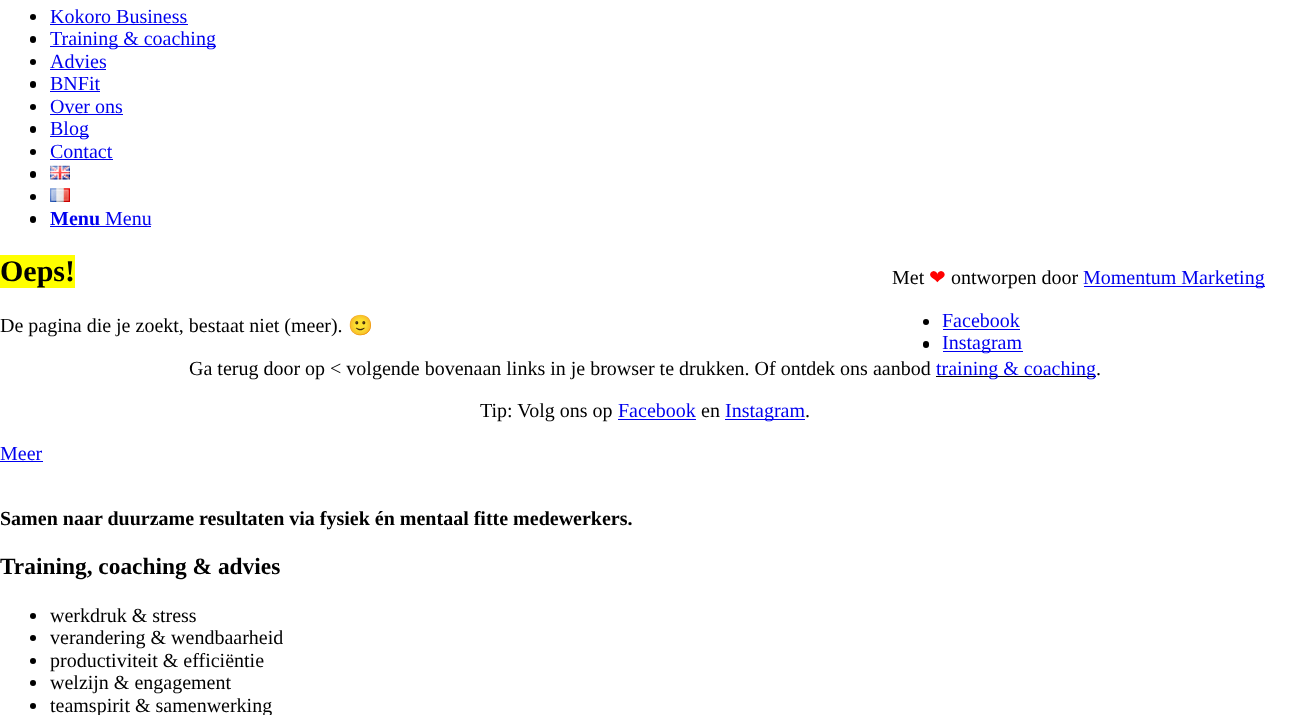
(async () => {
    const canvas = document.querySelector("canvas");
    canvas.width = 1290;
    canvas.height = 715;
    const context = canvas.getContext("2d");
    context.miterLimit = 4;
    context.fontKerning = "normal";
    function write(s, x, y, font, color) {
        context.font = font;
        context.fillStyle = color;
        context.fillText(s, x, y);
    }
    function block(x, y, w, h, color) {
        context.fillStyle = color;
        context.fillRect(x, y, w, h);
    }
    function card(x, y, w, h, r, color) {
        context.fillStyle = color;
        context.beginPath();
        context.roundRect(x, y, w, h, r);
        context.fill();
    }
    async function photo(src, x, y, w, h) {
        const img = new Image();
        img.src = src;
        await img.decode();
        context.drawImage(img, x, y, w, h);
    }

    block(0, 0, 1290, 715, "rgb(255, 255, 255)");
    context.fillStyle = "rgb(0, 0, 0)";
    context.beginPath();
    context.arc(33, 17, 3, 0, Math.PI * 2);
    context.fill();
    write("Kokoro Business", 50, 23, "20px Liberation Serif", "rgb(0, 0, 238)");
    block(50, 24, 138, 1, "rgb(0, 0, 238)");
    card(30, 36, 6, 7, 3, "rgb(0, 0, 0)");
    block(50, 46, 166, 1, "rgb(0, 0, 238)");
    write("Training & coaching", 50, 45, "20px Liberation Serif", "rgb(0, 0, 238)");
    context.fillStyle = "rgb(0, 0, 0)";
    context.beginPath();
    context.arc(33, 62, 3, 0, Math.PI * 2);
    context.fill();
    write("Advies", 50, 68, "20px Liberation Serif", "rgb(0, 0, 238)");
    block(50, 69, 56, 1, "rgb(0, 0, 238)");
    card(30, 81, 6, 7, 3, "rgb(0, 0, 0)");
    write("BNFit", 50, 90, "20px Liberation Serif", "rgb(0, 0, 238)");
    block(50, 91, 50, 1, "rgb(0, 0, 238)");
    context.fillStyle = "rgb(0, 0, 0)";
    context.beginPath();
    context.arc(33, 107, 3, 0, Math.PI * 2);
    context.fill();
    write("Over ons", 50, 113, "20px Liberation Serif", "rgb(0, 0, 238)");
    block(50, 114, 73, 1, "rgb(0, 0, 238)");
    card(30, 126, 6, 7, 3, "rgb(0, 0, 0)");
    block(50, 136, 39, 1, "rgb(0, 0, 238)");
    write("Blog", 50, 135, "20px Liberation Serif", "rgb(0, 0, 238)");
    context.fillStyle = "rgb(0, 0, 0)";
    context.beginPath();
    context.arc(33, 152, 3, 0, Math.PI * 2);
    context.fill();
    write("Contact", 50, 158, "20px Liberation Serif", "rgb(0, 0, 238)");
    block(50, 159, 63, 1, "rgb(0, 0, 238)");
    card(30, 171, 6, 7, 3, "rgb(0, 0, 0)");
    await photo("media/1.png", 50, 165, 20, 15);
    context.beginPath();
    context.arc(33, 197, 3, 0, Math.PI * 2);
    context.fill();
    await photo("media/2.png", 50, 188, 20, 14);
    card(30, 216, 6, 7, 3, "rgb(0, 0, 0)");
    write("Menu", 50, 225, "bold 20px Liberation Serif", "rgb(0, 0, 238)");
    block(50, 226, 101, 1, "rgb(0, 0, 238)");
    write("Menu", 105, 225, "20px Liberation Serif", "rgb(0, 0, 238)");
    block(0, 255, 75, 33, "rgb(255, 255, 0)");
    write("Oeps!", 0, 281, "bold 30px Liberation Serif", "rgb(0, 0, 0)");
    write("De pagina die je zoekt, bestaat niet (meer).", 0, 332, "20px Liberation Serif", "rgb(0, 0, 0)");
    write("🙂", 348, 332, "20px Noto Color Emoji", "rgb(0, 0, 0)");
    write("Ga terug door op < volgende bovenaan links in je browser te drukken. Of ontdek ons aanbod", 189, 375, "20px Liberation Serif", "rgb(0, 0, 0)");
    block(936, 376, 160, 1, "rgb(0, 0, 0)");
    write("training & coaching", 936, 375, "20px Liberation Serif", "rgb(0, 0, 238)");
    write(".", 1096, 375, "20px Liberation Serif", "rgb(0, 0, 0)");
    write("Tip: Volg ons op", 480, 417, "20px Liberation Serif", "rgb(0, 0, 0)");
    write("Facebook", 618, 417, "20px Liberation Serif", "rgb(0, 0, 238)");
    block(618, 419, 78, 1, "rgb(0, 0, 238)");
    write("en", 701, 417, "20px Liberation Serif", "rgb(0, 0, 0)");
    block(725, 419, 80, 1, "rgb(0, 0, 238)");
    write("Instagram", 725, 417, "20px Liberation Serif", "rgb(0, 0, 238)");
    write(".", 805, 417, "20px Liberation Serif", "rgb(0, 0, 0)");
    write("Meer", 0, 460, "20px Liberation Serif", "rgb(0, 0, 238)");
    block(0, 461, 43, 1, "rgb(0, 0, 238)");
    write("Met", 892, 284, "20px Liberation Serif", "rgb(0, 0, 0)");
    write("❤", 929, 284, "20px DejaVu Sans", "rgb(255, 0, 0)");
    write("ontworpen door", 951, 284, "20px Liberation Serif", "rgb(0, 0, 0)");
    block(1084, 286, 181, 1, "rgb(0, 0, 238)");
    write("Momentum Marketing", 1083, 284, "20px Liberation Serif", "rgb(0, 0, 238)");
    context.fillStyle = "rgb(0, 0, 0)";
    context.beginPath();
    context.arc(926, 322, 3, 0, Math.PI * 2);
    context.fill();
    write("Facebook", 942, 327, "20px Liberation Serif", "rgb(0, 0, 238)");
    block(943, 329, 77, 1, "rgb(0, 0, 238)");
    card(923, 341, 6, 7, 3, "rgb(0, 0, 0)");
    block(943, 351, 80, 1, "rgb(0, 0, 238)");
    write("Instagram", 942, 349, "20px Liberation Serif", "rgb(0, 0, 238)");
    write("Samen naar duurzame resultaten via fysiek én mentaal fitte medewerkers.", 0, 525, "bold 20px Liberation Serif", "rgb(0, 0, 0)");
    write("Training, coaching & advies", 0, 574, "bold 23.4px Liberation Serif", "rgb(0, 0, 0)");
    context.beginPath();
    context.arc(33, 616, 3, 0, Math.PI * 2);
    context.fill();
    write("werkdruk & stress", 50, 622, "20px Liberation Serif", "rgb(0, 0, 0)");
    context.beginPath();
    context.arc(33, 638, 3, 0, Math.PI * 2);
    context.fill();
    write("verandering & wendbaarheid", 50, 644, "20px Liberation Serif", "rgb(0, 0, 0)");
    context.beginPath();
    context.arc(33, 661, 3, 0, Math.PI * 2);
    context.fill();
    write("productiviteit & efficiëntie", 50, 667, "20px Liberation Serif", "rgb(0, 0, 0)");
    context.beginPath();
    context.arc(33, 683, 3, 0, Math.PI * 2);
    context.fill();
    write("welzijn & engagement", 50, 689, "20px Liberation Serif", "rgb(0, 0, 0)");
    context.beginPath();
    context.arc(33, 706, 3, 0, Math.PI * 2);
    context.fill();
    write("teamspirit & samenwerking", 50, 712, "20px Liberation Serif", "rgb(0, 0, 0)");
})();
